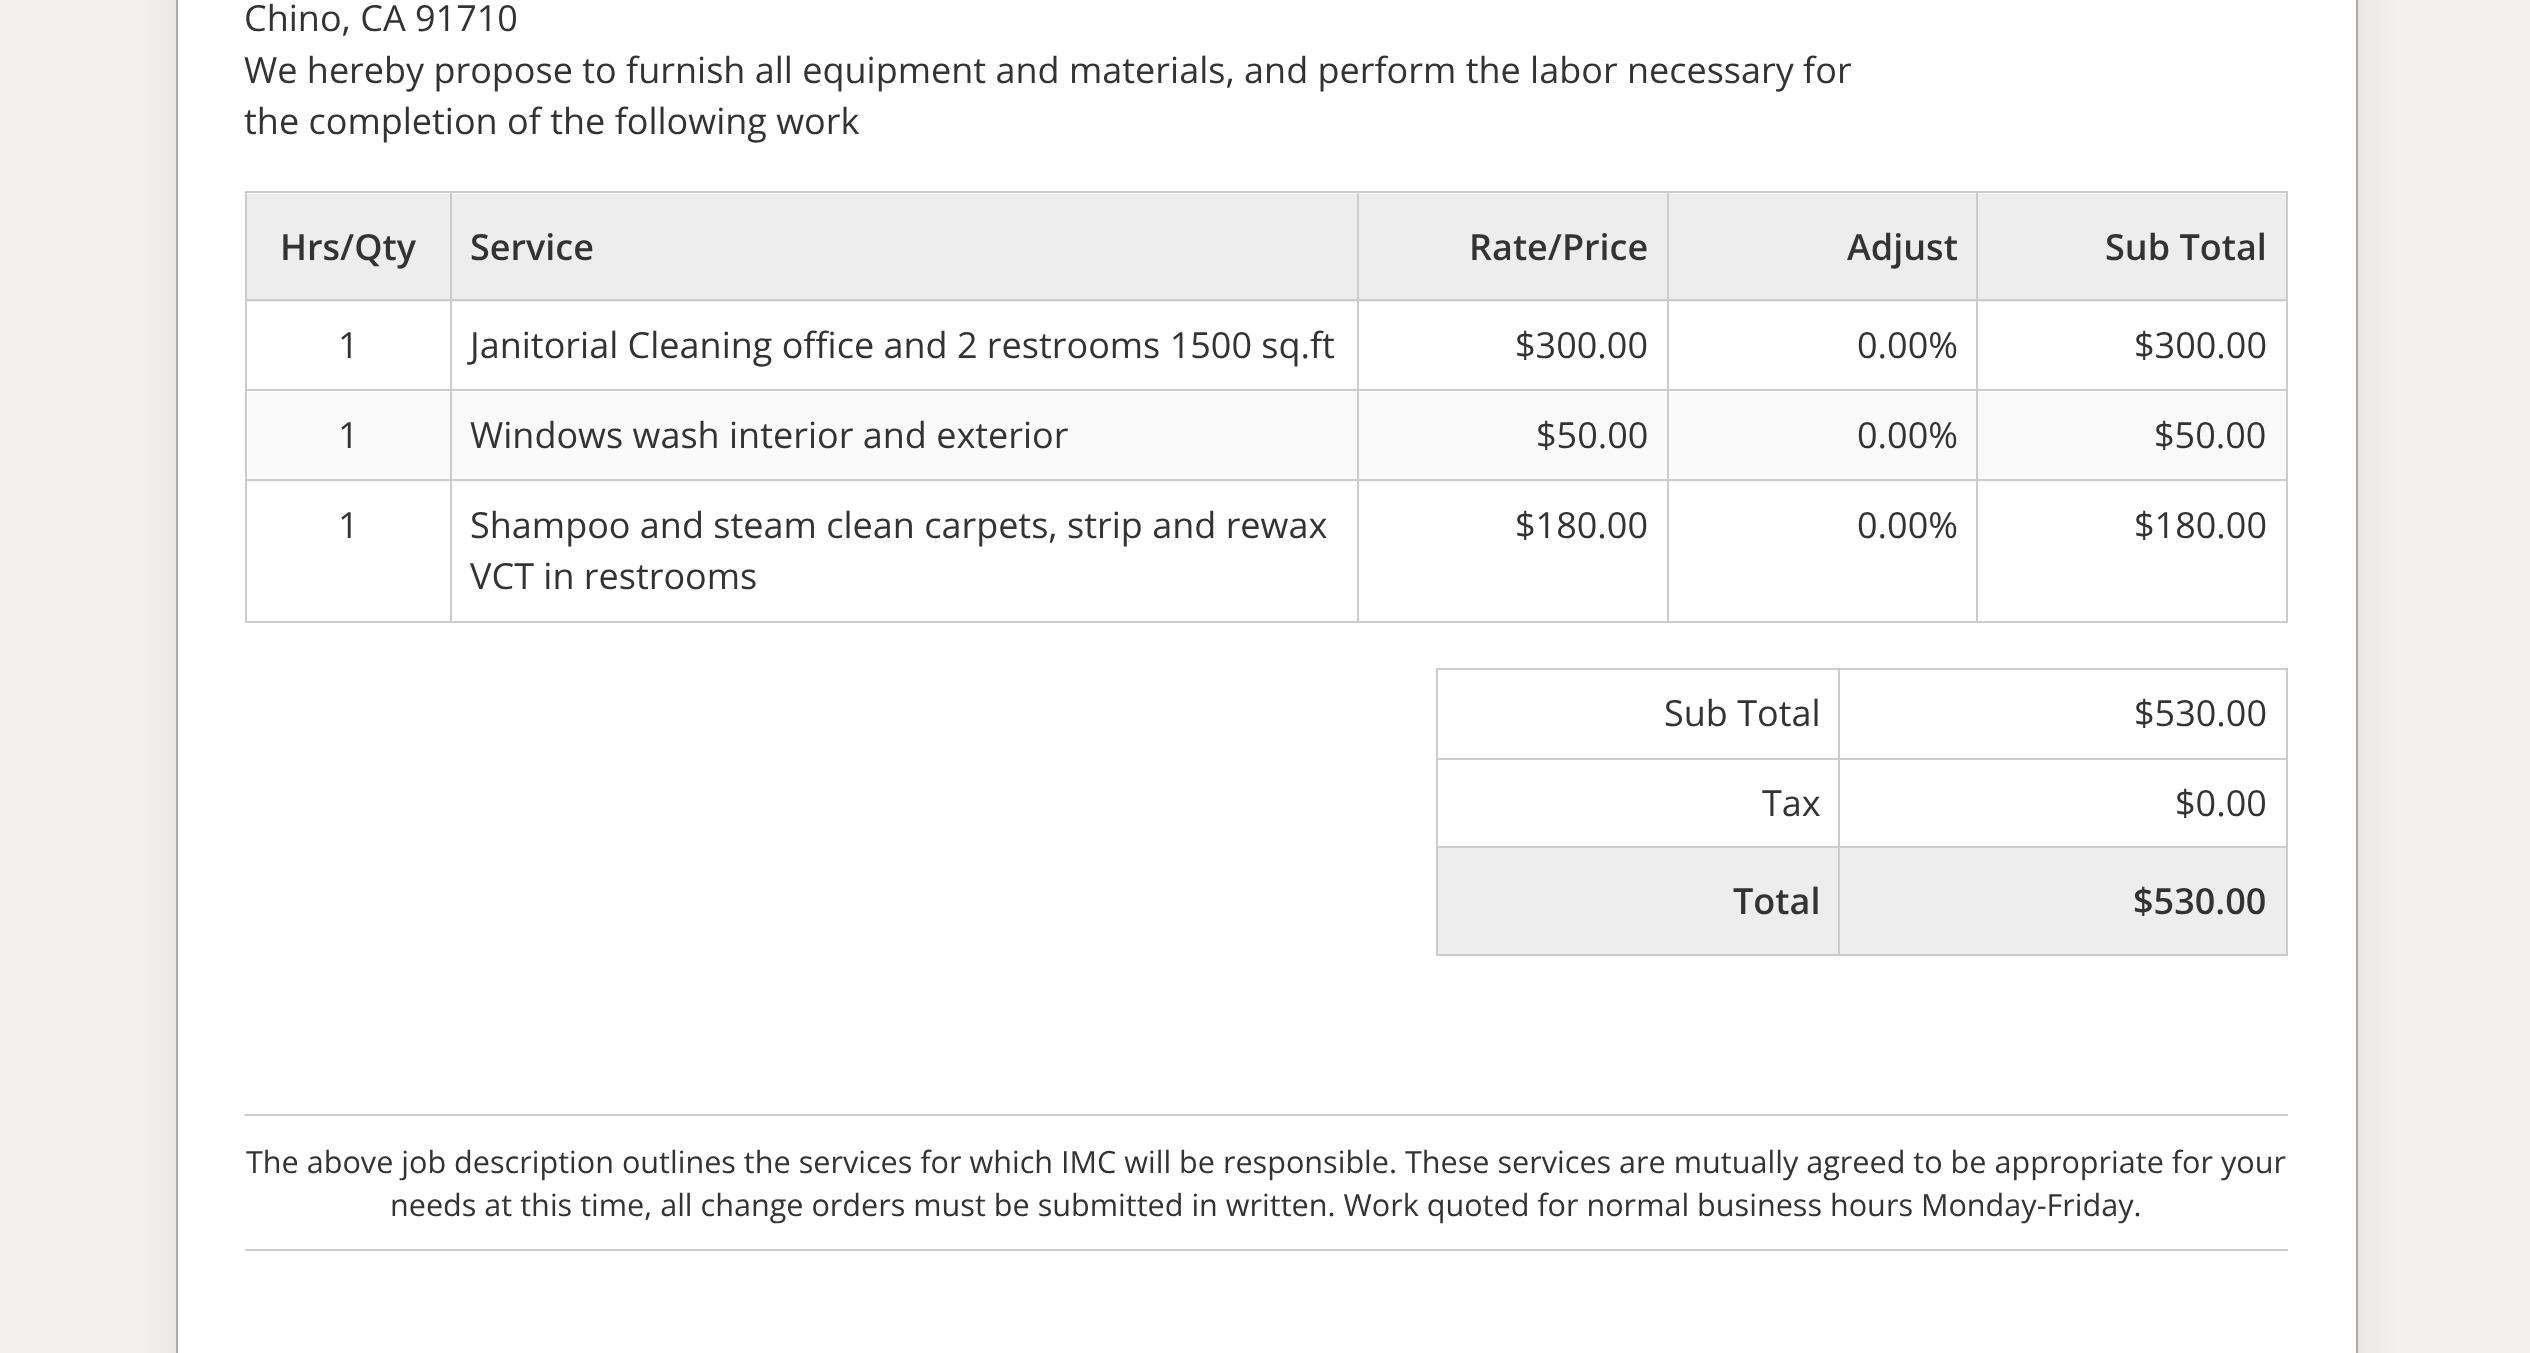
(async () => {
    const canvas = document.querySelector("canvas");
    canvas.width = 2530;
    canvas.height = 1353;
    const context = canvas.getContext("2d");
    context.miterLimit = 4;
    context.fontKerning = "normal";
    function write(s, x, y, font, color) {
        context.font = font;
        context.fillStyle = color;
        context.fillText(s, x, y);
    }
    function block(x, y, w, h, color) {
        context.fillStyle = color;
        context.fillRect(x, y, w, h);
    }

    block(0, 0, 2530, 1353, "rgb(242, 241, 239)");
    context.fillStyle = "rgba(0, 0, 0, 0.07)";
    context.filter = "blur(22.5px)";
    context.beginPath();
    context.rect(176, -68, 2182, 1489);
    context.fill();
    context.filter = "none";
    context.fillStyle = "rgb(255, 255, 255)";
    context.beginPath();
    context.rect(177, -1, 2180, 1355);
    context.fill();
    context.strokeStyle = "rgb(170, 170, 170)";
    context.lineWidth = 2;
    context.stroke();
    write("Chino, CA 91710", 244, 31, "36px Open Sans", "rgb(51, 51, 51)");
    write("We hereby propose to furnish all equipment and materials, and perform the labor necessary for", 244, 83, "36px Open Sans", "rgb(51, 51, 51)");
    write("the completion of the following work", 244, 134, "36px Open Sans", "rgb(51, 51, 51)");
    block(245, 191, 2043, 2, "rgb(204, 204, 204)");
    block(2286, 191, 2, 432, "rgb(204, 204, 204)");
    block(245, 621, 2043, 2, "rgb(204, 204, 204)");
    block(245, 191, 2, 432, "rgb(204, 204, 204)");
    block(247, 194, 203, 108, "rgb(237, 237, 237)");
    write("Hrs/Qty", 280, 260, "600 36px Open Sans", "rgb(51, 51, 51)");
    block(452, 194, 905, 108, "rgb(237, 237, 237)");
    block(1359, 194, 308, 108, "rgb(237, 237, 237)");
    block(1669, 194, 307, 108, "rgb(237, 237, 237)");
    block(1978, 194, 308, 108, "rgb(237, 237, 237)");
    block(1976, 299, 312, 2, "rgb(204, 204, 204)");
    block(1976, 389, 312, 2, "rgb(204, 204, 204)");
    block(247, 392, 2039, 90, "rgb(250, 250, 250)");
    block(1976, 479, 312, 2, "rgb(204, 204, 204)");
    block(1976, 479, 2, 144, "rgb(204, 204, 204)");
    block(1667, 479, 311, 2, "rgb(204, 204, 204)");
    block(1976, 389, 2, 93, "rgb(204, 204, 204)");
    block(1667, 389, 311, 2, "rgb(204, 204, 204)");
    block(1976, 299, 2, 93, "rgb(204, 204, 204)");
    block(1667, 299, 311, 2, "rgb(204, 204, 204)");
    block(1667, 479, 2, 144, "rgb(204, 204, 204)");
    block(1357, 479, 313, 2, "rgb(204, 204, 204)");
    block(1667, 389, 2, 93, "rgb(204, 204, 204)");
    block(1357, 389, 313, 2, "rgb(204, 204, 204)");
    block(1667, 299, 2, 93, "rgb(204, 204, 204)");
    block(1357, 299, 313, 2, "rgb(204, 204, 204)");
    block(1357, 479, 2, 144, "rgb(204, 204, 204)");
    block(450, 479, 909, 2, "rgb(204, 204, 204)");
    block(1357, 389, 2, 93, "rgb(204, 204, 204)");
    block(450, 389, 909, 2, "rgb(204, 204, 204)");
    block(1357, 299, 2, 93, "rgb(204, 204, 204)");
    block(450, 299, 909, 2, "rgb(204, 204, 204)");
    block(450, 479, 2, 144, "rgb(204, 204, 204)");
    block(245, 479, 207, 2, "rgb(204, 204, 204)");
    block(450, 389, 2, 93, "rgb(204, 204, 204)");
    block(245, 389, 207, 2, "rgb(204, 204, 204)");
    block(450, 299, 2, 93, "rgb(204, 204, 204)");
    block(245, 299, 207, 2, "rgb(204, 204, 204)");
    block(450, 191, 2, 111, "rgb(204, 204, 204)");
    write("Service", 470, 260, "600 36px Open Sans", "rgb(51, 51, 51)");
    block(1357, 191, 2, 111, "rgb(204, 204, 204)");
    write("Rate/Price", 1469, 260, "600 36px Open Sans", "rgb(51, 51, 51)");
    block(1667, 191, 2, 111, "rgb(204, 204, 204)");
    write("Adjust", 1847, 260, "600 36px Open Sans", "rgb(51, 51, 51)");
    block(1976, 191, 2, 111, "rgb(204, 204, 204)");
    write("Sub Total", 2105, 260, "600 36px Open Sans", "rgb(51, 51, 51)");
    write("1", 338, 358, "36px Open Sans", "rgb(51, 51, 51)");
    write("Janitorial Cleaning office and 2 restrooms 1500 sq.ft", 470, 358, "36px Open Sans", "rgb(51, 51, 51)");
    write("$300.00", 1515, 358, "36px Open Sans", "rgb(51, 51, 51)");
    write("0.00%", 1857, 358, "36px Open Sans", "rgb(51, 51, 51)");
    write("$300.00", 2134, 358, "36px Open Sans", "rgb(51, 51, 51)");
    write("1", 338, 448, "36px Open Sans", "rgb(51, 51, 51)");
    write("Windows wash interior and exterior", 470, 448, "36px Open Sans", "rgb(51, 51, 51)");
    write("$50.00", 1536, 448, "36px Open Sans", "rgb(51, 51, 51)");
    write("0.00%", 1857, 448, "36px Open Sans", "rgb(51, 51, 51)");
    write("$50.00", 2154, 448, "36px Open Sans", "rgb(51, 51, 51)");
    write("1", 338, 538, "36px Open Sans", "rgb(51, 51, 51)");
    write("Shampoo and steam clean carpets, strip and rewax", 470, 538, "36px Open Sans", "rgb(51, 51, 51)");
    write("VCT in restrooms", 470, 589, "36px Open Sans", "rgb(51, 51, 51)");
    write("$180.00", 1515, 538, "36px Open Sans", "rgb(51, 51, 51)");
    write("0.00%", 1857, 538, "36px Open Sans", "rgb(51, 51, 51)");
    write("$180.00", 2134, 538, "36px Open Sans", "rgb(51, 51, 51)");
    block(1436, 668, 852, 2, "rgb(204, 204, 204)");
    block(2286, 668, 2, 288, "rgb(204, 204, 204)");
    block(1436, 954, 852, 2, "rgb(204, 204, 204)");
    block(1436, 668, 2, 288, "rgb(204, 204, 204)");
    write("Sub Total", 1664, 726, "36px Open Sans", "rgb(51, 51, 51)");
    block(1838, 758, 450, 2, "rgb(204, 204, 204)");
    block(1838, 846, 450, 2, "rgb(204, 204, 204)");
    block(1838, 846, 2, 110, "rgb(204, 204, 204)");
    block(1436, 846, 405, 2, "rgb(204, 204, 204)");
    block(1838, 758, 2, 90, "rgb(204, 204, 204)");
    block(1436, 758, 405, 2, "rgb(204, 204, 204)");
    block(1838, 668, 2, 93, "rgb(204, 204, 204)");
    write("$530.00", 2134, 726, "36px Open Sans", "rgb(51, 51, 51)");
    write("Tax", 1762, 816, "36px Open Sans", "rgb(51, 51, 51)");
    write("$0.00", 2175, 816, "36px Open Sans", "rgb(51, 51, 51)");
    block(1438, 848, 400, 106, "rgb(237, 237, 237)");
    write("Total", 1733, 914, "600 36px Open Sans", "rgb(51, 51, 51)");
    block(1840, 848, 446, 106, "rgb(237, 237, 237)");
    write("$530.00", 2133, 914, "600 36px Open Sans", "rgb(51, 51, 51)");
    block(245, 1114, 2043, 2, "rgb(204, 204, 204)");
    block(245, 1249, 2043, 2, "rgb(204, 204, 204)");
    write("The above job description outlines the services for which IMC will be responsible. These services are mutually agreed to be appropriate for your", 246, 1173, "30.6px Open Sans", "rgb(51, 51, 51)");
    write("needs at this time, all change orders must be submitted in written. Work quoted for normal business hours Monday-Friday.", 390, 1216, "30.6px Open Sans", "rgb(51, 51, 51)");
})();
